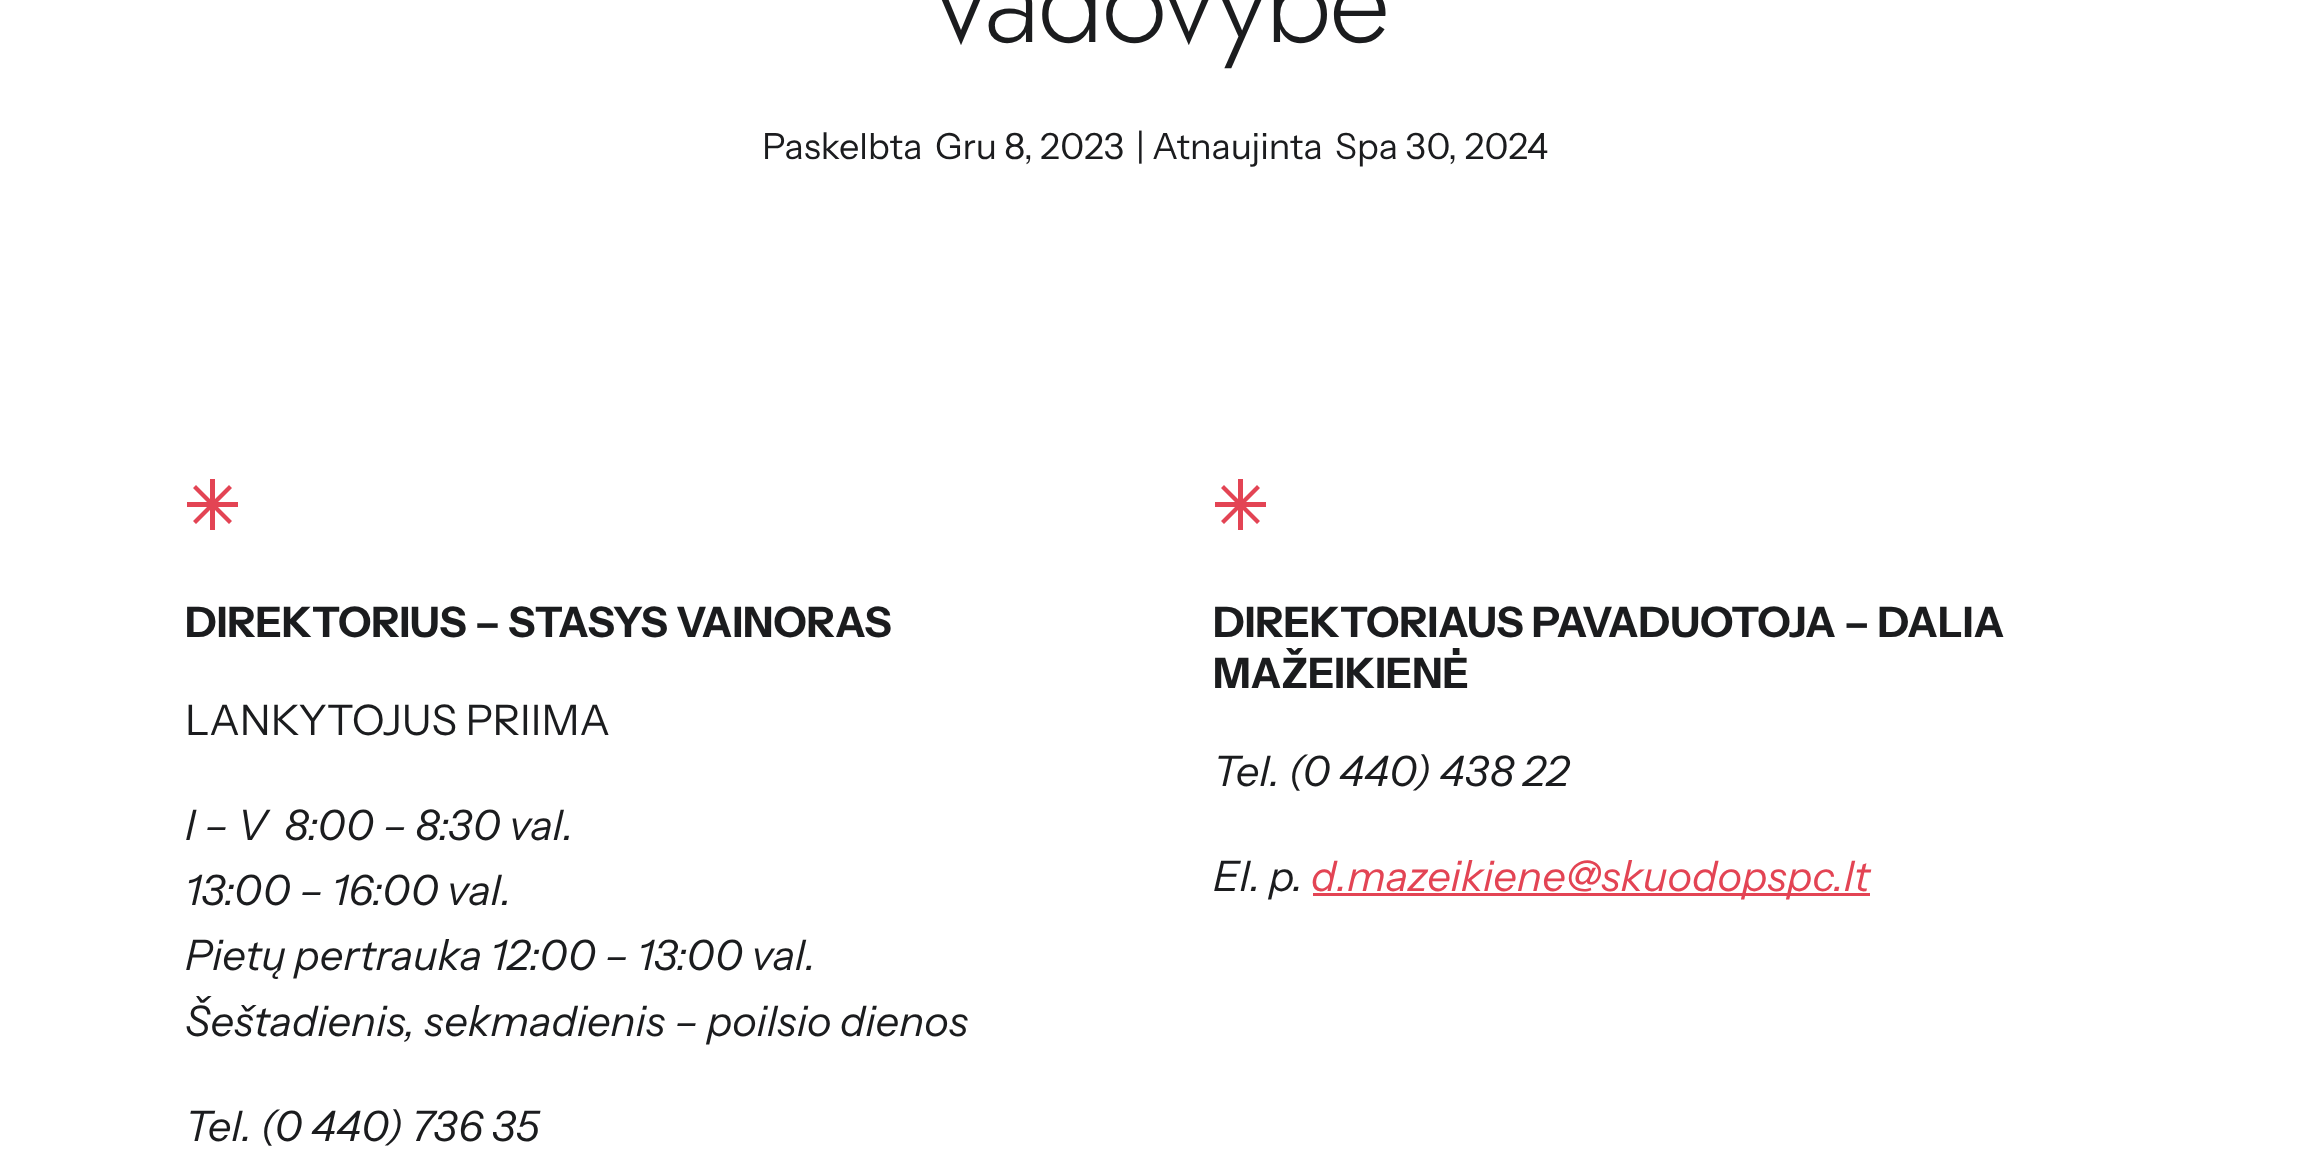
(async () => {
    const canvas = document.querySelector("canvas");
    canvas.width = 2310;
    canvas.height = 1171;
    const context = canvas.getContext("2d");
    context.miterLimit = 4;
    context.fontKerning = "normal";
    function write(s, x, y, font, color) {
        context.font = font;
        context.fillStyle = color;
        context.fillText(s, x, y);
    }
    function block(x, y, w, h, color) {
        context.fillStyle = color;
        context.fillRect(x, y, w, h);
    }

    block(0, 0, 2310, 1171, "rgb(255, 255, 255)");
    context.letterSpacing = "-2.5px";
    write("Vadovybė", 923, 42, "300 119.5px Jost", "rgb(27, 28, 30)");
    context.letterSpacing = "0px";
    write("Paskelbta", 762, 159, "36px Instrument Sans", "rgb(27, 28, 30)");
    write("Gru 8, 2023", 935, 159, "36px Instrument Sans", "rgb(27, 28, 30)");
    write("| Atnaujinta", 1136, 159, "36px Instrument Sans", "rgb(27, 28, 30)");
    write("Spa 30, 2024", 1335, 159, "36px Instrument Sans", "rgb(27, 28, 30)");
    context.fillStyle = "rgb(227, 68, 84)";
    context.beginPath();
    context.moveTo(215, 479);
    context.lineTo(210, 479);
    context.lineTo(210, 499);
    context.lineTo(196, 485);
    context.lineTo(193, 488);
    context.lineTo(207, 502);
    context.lineTo(187, 502);
    context.lineTo(187, 507);
    context.lineTo(207, 507);
    context.lineTo(193, 521);
    context.lineTo(196, 524);
    context.lineTo(210, 510);
    context.lineTo(210, 530);
    context.lineTo(215, 530);
    context.lineTo(215, 510);
    context.lineTo(229, 524);
    context.lineTo(232, 521);
    context.lineTo(218, 507);
    context.lineTo(238, 507);
    context.lineTo(238, 502);
    context.lineTo(218, 502);
    context.lineTo(232, 488);
    context.lineTo(229, 485);
    context.lineTo(215, 499);
    context.closePath();
    context.fill();
    write("DIREKTORIUS – STASYS VAINORAS", 185, 637, "bold 42px Instrument Sans", "rgb(27, 28, 30)");
    write("LANKYTOJUS PRIIMA", 185, 735, "42px Instrument Sans", "rgb(27, 28, 30)");
    write("I – V  8:00 – 8:30 val.", 185, 840, "italic 42px Instrument Sans", "rgb(27, 28, 30)");
    write("13:00 – 16:00 val.", 185, 905, "italic 42px Instrument Sans", "rgb(27, 28, 30)");
    write("Pietų pertrauka 12:00 – 13:00 val.", 185, 970, "italic 42px Instrument Sans", "rgb(27, 28, 30)");
    write("Šeštadienis, sekmadienis – poilsio dienos", 185, 1036, "italic 42px Instrument Sans", "rgb(27, 28, 30)");
    write("Tel. (0 440) 736 35", 185, 1141, "italic 42px Instrument Sans", "rgb(27, 28, 30)");
    context.fillStyle = "rgb(227, 68, 84)";
    context.beginPath();
    context.moveTo(1243, 479);
    context.lineTo(1238, 479);
    context.lineTo(1238, 499);
    context.lineTo(1224, 485);
    context.lineTo(1221, 488);
    context.lineTo(1235, 502);
    context.lineTo(1215, 502);
    context.lineTo(1215, 507);
    context.lineTo(1235, 507);
    context.lineTo(1221, 521);
    context.lineTo(1224, 524);
    context.lineTo(1238, 510);
    context.lineTo(1238, 530);
    context.lineTo(1243, 530);
    context.lineTo(1243, 510);
    context.lineTo(1257, 524);
    context.lineTo(1260, 521);
    context.lineTo(1246, 507);
    context.lineTo(1266, 507);
    context.lineTo(1266, 502);
    context.lineTo(1246, 502);
    context.lineTo(1260, 488);
    context.lineTo(1257, 485);
    context.lineTo(1243, 499);
    context.closePath();
    context.fill();
    write("DIREKTORIAUS PAVADUOTOJA – DALIA", 1213, 637, "bold 42px Instrument Sans", "rgb(27, 28, 30)");
    write("MAŽEIKIENĖ", 1213, 688, "bold 42px Instrument Sans", "rgb(27, 28, 30)");
    write("Tel. (0 440) 438 22", 1213, 786, "italic 42px Instrument Sans", "rgb(27, 28, 30)");
    write("El. p.", 1213, 891, "italic 42px Instrument Sans", "rgb(27, 28, 30)");
    block(1313, 893, 557, 3, "rgb(227, 68, 84)");
    write("d.mazeikiene@skuodopspc.lt", 1311, 891, "italic 42px Instrument Sans", "rgb(227, 68, 84)");
})();
